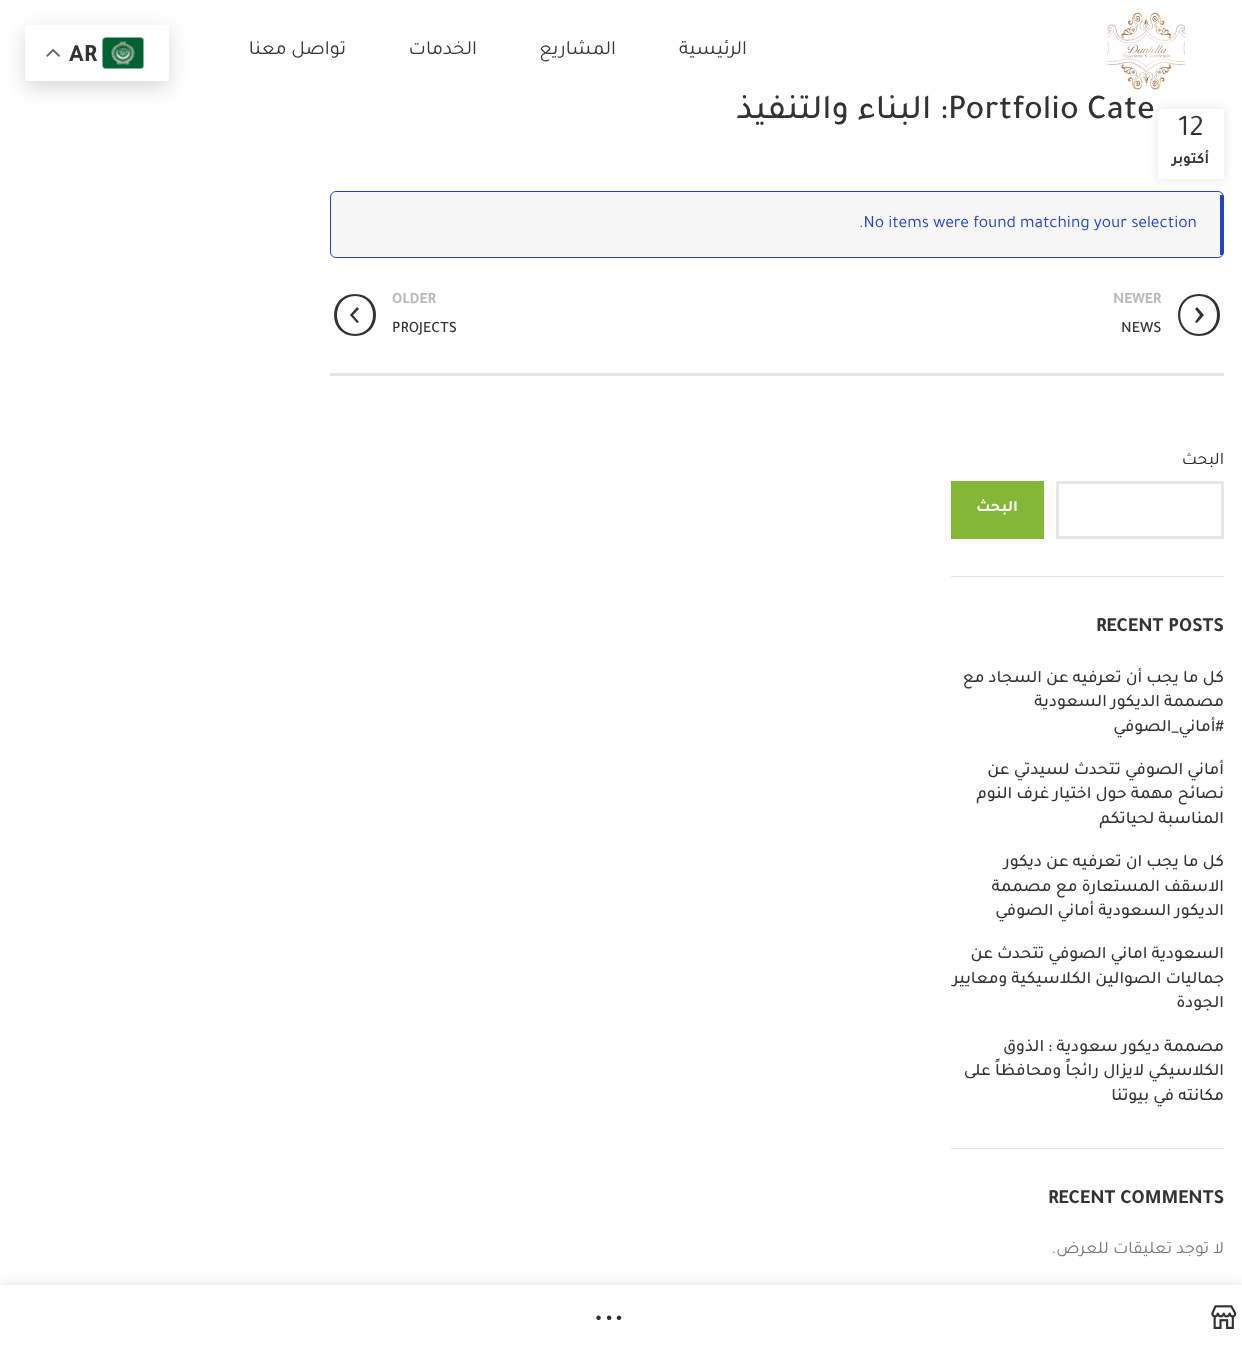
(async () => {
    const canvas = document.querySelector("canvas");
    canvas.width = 1242;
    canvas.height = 1353;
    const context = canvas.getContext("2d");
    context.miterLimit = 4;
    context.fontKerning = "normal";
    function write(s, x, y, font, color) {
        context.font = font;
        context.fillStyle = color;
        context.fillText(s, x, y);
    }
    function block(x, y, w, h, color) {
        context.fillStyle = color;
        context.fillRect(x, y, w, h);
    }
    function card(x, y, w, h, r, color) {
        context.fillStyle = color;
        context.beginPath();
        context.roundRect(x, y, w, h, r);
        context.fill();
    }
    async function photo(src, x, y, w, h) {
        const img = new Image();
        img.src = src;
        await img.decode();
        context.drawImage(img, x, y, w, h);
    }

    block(0, 0, 1242, 1353, "rgb(255, 255, 255)");
    await photo("media/1.png", 1107, 12, 78, 78);
    context.direction = "rtl";
    write("الرئيسية", 747, 54, "20px Tajawal", "rgb(51, 51, 51)");
    write("المشاريع", 616, 54, "20px Tajawal", "rgb(51, 51, 51)");
    write("الخدمات", 477, 54, "20px Tajawal", "rgb(51, 51, 51)");
    write("تواصل معنا", 346, 54, "20px Tajawal", "rgb(51, 51, 51)");
    context.direction = "ltr";
    write("Portfolio Cate", 948, 118, "500 35px Tajawal", "rgb(51, 51, 51)");
    context.direction = "rtl";
    write(": البناء والتنفيذ", 948, 118, "500 35px Tajawal", "rgb(51, 51, 51)");
    context.fillStyle = "rgb(247, 247, 247)";
    context.beginPath();
    context.moveTo(336, 192);
    context.lineTo(1218, 192);
    context.bezierCurveTo(1219, 192, 1220, 195, 1220, 198);
    context.lineTo(1220, 251);
    context.bezierCurveTo(1220, 254, 1219, 256, 1218, 256);
    context.lineTo(336, 256);
    context.bezierCurveTo(333, 256, 331, 254, 331, 251);
    context.lineTo(331, 198);
    context.bezierCurveTo(331, 195, 333, 192, 336, 192);
    context.closePath();
    context.fill();
    context.beginPath();
    context.roundRect(330.5, 191.5, 893, 66, 5.5);
    context.strokeStyle = "rgb(37, 64, 204)";
    context.stroke();
    block(1220, 195, 3, 60, "rgb(37, 64, 204)");
    context.fillStyle = "rgba(0, 0, 0, 0.1)";
    context.filter = "blur(5.5px)";
    context.beginPath();
    context.rect(1158, 109, 66, 70);
    context.fill();
    context.filter = "none";
    block(1158, 109, 66, 70, "rgb(255, 255, 255)");
    context.direction = "ltr";
    write("12", 1178, 135, "30px Tajawal", "rgb(51, 51, 51)");
    context.direction = "rtl";
    write("أكتوبر", 1209, 163, "bold 15px Tajawal", "rgb(51, 51, 51)");
    context.direction = "ltr";
    write(".No items were found matching your selection", 859, 227, "17.5px Tajawal", "rgb(37, 64, 204)");
    block(330, 373, 894, 3, "rgb(228, 228, 228)");
    context.fillStyle = "rgb(51, 51, 51)";
    context.beginPath();
    context.moveTo(1199, 336);
    context.bezierCurveTo(1171, 336, 1171, 294, 1199, 294);
    context.bezierCurveTo(1227, 294, 1227, 336, 1199, 336);
    context.closePath();
    context.moveTo(1199, 296);
    context.bezierCurveTo(1174, 296, 1174, 334, 1199, 334);
    context.bezierCurveTo(1223, 334, 1223, 296, 1199, 296);
    context.closePath();
    context.moveTo(1197, 323);
    context.lineTo(1195, 322);
    context.lineTo(1200, 315);
    context.lineTo(1195, 309);
    context.lineTo(1197, 307);
    context.lineTo(1204, 315);
    context.closePath();
    context.fill();
    write("NEWER", 1113, 303, "bold 15.75px Tajawal", "rgb(187, 187, 187)");
    write("NEWS", 1121, 332, "500 15.75px Tajawal", "rgb(51, 51, 51)");
    write("OLDER", 392, 303, "bold 15.75px Tajawal", "rgb(187, 187, 187)");
    context.fillStyle = "rgb(51, 51, 51)";
    context.beginPath();
    context.moveTo(355, 336);
    context.bezierCurveTo(327, 336, 327, 294, 355, 294);
    context.bezierCurveTo(383, 294, 383, 336, 355, 336);
    context.closePath();
    context.moveTo(355, 296);
    context.bezierCurveTo(331, 296, 331, 334, 355, 334);
    context.bezierCurveTo(379, 334, 379, 296, 355, 296);
    context.closePath();
    context.moveTo(357, 323);
    context.lineTo(350, 315);
    context.lineTo(357, 307);
    context.lineTo(359, 309);
    context.lineTo(353, 315);
    context.lineTo(359, 322);
    context.closePath();
    context.fill();
    write("PROJECTS", 392, 332, "500 15.75px Tajawal", "rgb(51, 51, 51)");
    block(951, 576, 273, 1, "rgb(228, 228, 228)");
    context.direction = "rtl";
    write("البحث", 1224, 464, "17.5px Tajawal", "rgb(36, 36, 36)");
    context.strokeStyle = "rgb(230, 230, 230)";
    context.lineWidth = 3;
    context.strokeRect(1057.5, 482.5, 165, 55);
    block(951, 481, 93, 58, "rgb(131, 183, 53)");
    write("البحث", 1018, 511, "bold 16px Tajawal", "rgb(255, 255, 255)");
    block(951, 1148, 273, 1, "rgb(228, 228, 228)");
    context.direction = "ltr";
    write("RECENT POSTS", 1096, 631, "bold 20px Tajawal", "rgb(51, 51, 51)");
    context.direction = "rtl";
    write("كل ما يجب أن تعرفيه عن السجاد مع", 1224, 682, "500 17.5px Tajawal", "rgb(51, 51, 51)");
    write("مصممة الديكور السعودية", 1224, 706, "500 17.5px Tajawal", "rgb(51, 51, 51)");
    write("#أماني_الصوفي", 1224, 731, "500 17.5px Tajawal", "rgb(51, 51, 51)");
    write("أماني الصوفي تتحدث لسيدتي عن", 1224, 774, "500 17.5px Tajawal", "rgb(51, 51, 51)");
    write("نصائح مهمة حول اختيار غرف النوم", 1224, 798, "500 17.5px Tajawal", "rgb(51, 51, 51)");
    write("المناسبة لحياتكم", 1224, 823, "500 17.5px Tajawal", "rgb(51, 51, 51)");
    write("كل ما يجب ان تعرفيه عن ديكور", 1224, 866, "500 17.5px Tajawal", "rgb(51, 51, 51)");
    write("الاسقف المستعارة مع مصممة", 1224, 891, "500 17.5px Tajawal", "rgb(51, 51, 51)");
    write("الديكور السعودية أماني الصوفي", 1224, 915, "500 17.5px Tajawal", "rgb(51, 51, 51)");
    write("السعودية اماني الصوفي تتحدث عن", 1224, 958, "500 17.5px Tajawal", "rgb(51, 51, 51)");
    write("جماليات الصوالين الكلاسيكية ومعايير", 1224, 983, "500 17.5px Tajawal", "rgb(51, 51, 51)");
    write("الجودة", 1224, 1007, "500 17.5px Tajawal", "rgb(51, 51, 51)");
    write("مصممة ديكور سعودية : الذوق", 1224, 1051, "500 17.5px Tajawal", "rgb(51, 51, 51)");
    write("الكلاسيكي لايزال رائجاً ومحافظاً على", 1224, 1075, "500 17.5px Tajawal", "rgb(51, 51, 51)");
    write("مكانته في بيوتنا", 1224, 1100, "500 17.5px Tajawal", "rgb(51, 51, 51)");
    context.direction = "ltr";
    write("RECENT COMMENTS", 1048, 1203, "bold 20px Tajawal", "rgb(51, 51, 51)");
    context.direction = "rtl";
    write("لا توجد تعليقات للعرض.", 1224, 1253, "17.5px Tajawal", "rgb(119, 119, 119)");
    context.fillStyle = "rgba(0, 0, 0, 0.15)";
    context.filter = "blur(9.5px)";
    context.beginPath();
    context.roundRect(25, 31, 144, 57, 2.5);
    context.fill();
    context.filter = "none";
    card(25, 25, 144, 56, 2.5, "rgb(255, 255, 255)");
    await photo("media/2.png", 102, 37, 42, 32);
    context.direction = "ltr";
    write("AR", 69, 61, "bold 25px Tajawal", "rgb(51, 51, 51)");
    await photo("media/3.png", 46, 48, 14, 9);
    context.fillStyle = "rgba(0, 0, 0, 0.12)";
    context.filter = "blur(5.5px)";
    context.beginPath();
    context.rect(0, 1285, 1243, 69);
    context.fill();
    context.filter = "none";
    block(0, 1285, 1242, 68, "rgb(255, 255, 255)");
    await photo("media/4.png", 1211, 1305, 26, 24);
    await photo("media/5.png", 596, 1315, 26, 6);
})();
